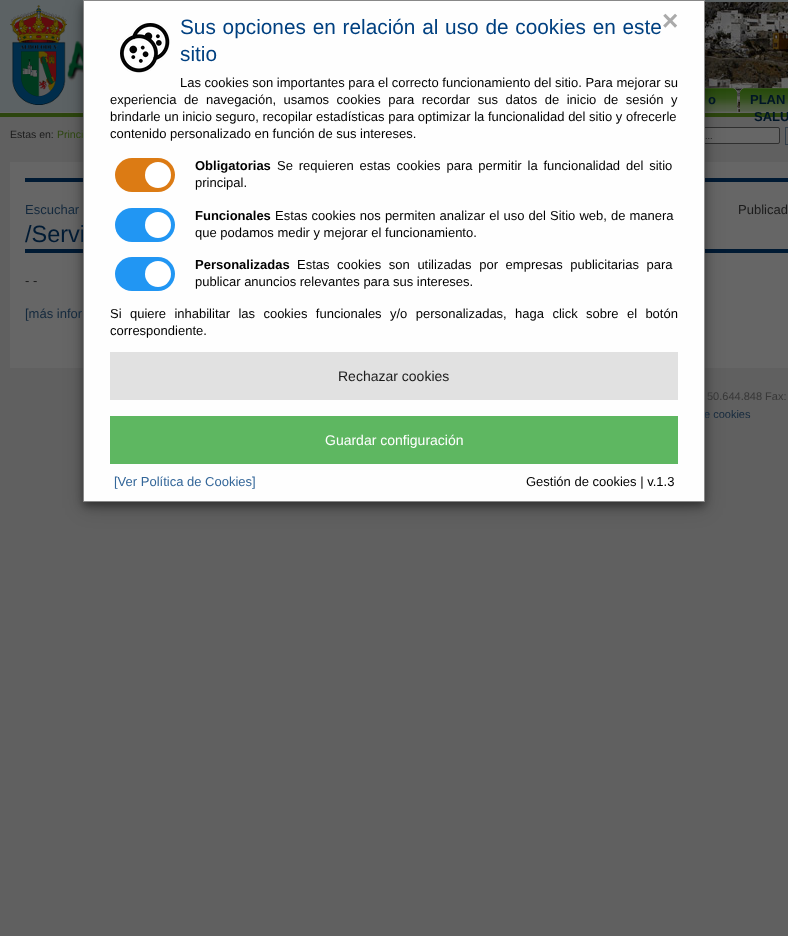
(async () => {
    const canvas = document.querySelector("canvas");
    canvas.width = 788;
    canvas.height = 936;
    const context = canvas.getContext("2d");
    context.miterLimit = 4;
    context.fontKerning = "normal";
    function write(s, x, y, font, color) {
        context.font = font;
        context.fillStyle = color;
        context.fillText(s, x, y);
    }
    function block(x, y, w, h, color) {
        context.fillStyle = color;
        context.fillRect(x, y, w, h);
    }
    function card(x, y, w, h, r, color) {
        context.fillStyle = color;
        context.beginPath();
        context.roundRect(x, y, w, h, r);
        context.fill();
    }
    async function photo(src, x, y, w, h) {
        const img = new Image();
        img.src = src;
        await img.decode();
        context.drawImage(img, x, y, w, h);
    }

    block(0, 0, 788, 936, "rgb(96, 96, 96)");
    block(0, 112, 740, 1, "rgb(102, 102, 102)");
    await photo("media/2.png", 0, 0, 788, 112);
    block(0, 113, 788, 4, "rgb(44, 69, 14)");
    await photo("media/3.png", 10, 5, 57, 100);
    await photo("media/4.png", 705, 88, 32, 25);
    context.fillStyle = "rgb(102, 102, 102)";
    context.beginPath();
    context.roundRect(666.5, 127.5, 113, 16, 1.5);
    context.fill();
    context.strokeStyle = "rgb(47, 47, 47)";
    context.stroke();
    block(10, 162, 778, 206, "rgb(102, 102, 102)");
    block(25, 178, 763, 4, "rgb(0, 26, 51)");
    block(25, 249, 763, 4, "rgb(0, 26, 51)");
    context.fillStyle = "rgba(0, 0, 0, 0.19)";
    context.filter = "blur(10px)";
    context.beginPath();
    context.rect(83, 6, 622, 502);
    context.fill();
    context.filter = "none";
    context.fillStyle = "rgba(0, 0, 0, 0.4)";
    context.filter = "blur(4px)";
    context.beginPath();
    context.rect(83, 4, 622, 502);
    context.fill();
    context.filter = "none";
    write("/Servi", 25, 242, "23.5px Liberation Sans", "rgb(0, 26, 51)");
    write("e cookies", 704, 418, "11px Liberation Sans", "rgb(20, 41, 61)");
    context.fillStyle = "rgb(254, 254, 254)";
    context.beginPath();
    context.rect(83.5, 0.5, 621, 501);
    context.fill();
    context.strokeStyle = "rgb(136, 136, 136)";
    context.stroke();
    await photo("media/1.png", 120, 23, 50, 50);
    context.wordSpacing = "1px";
    write("Sus opciones en relación al uso de cookies en este", 180, 34, "20.8px Liberation Sans", "rgb(0, 64, 128)");
    context.wordSpacing = "0px";
    write("sitio", 180, 61, "20.8px Liberation Sans", "rgb(0, 64, 128)");
    write("×", 662, 30, "bold 28px Liberation Sans", "rgb(170, 170, 170)");
    write("Las cookies son importantes para el correcto funcionamiento del sitio. Para mejorar su", 180, 87, "13px Liberation Sans", "rgb(0, 0, 0)");
    context.wordSpacing = "3.9px";
    write("experiencia de navegación, usamos cookies para recordar sus datos de inicio de sesión y", 110, 104, "13px Liberation Sans", "rgb(0, 0, 0)");
    context.wordSpacing = "0px";
    write("brindarle un inicio seguro, recopilar estadísticas para optimizar la funcionalidad del sitio y ofrecerle", 110, 121, "13px Liberation Sans", "rgb(0, 0, 0)");
    write("contenido personalizado en función de sus intereses.", 110, 138, "13px Liberation Sans", "rgb(0, 0, 0)");
    card(115, 158, 60, 34, 17, "rgb(220, 123, 20)");
    context.fillStyle = "rgb(255, 255, 255)";
    context.beginPath();
    context.arc(158, 175, 13, 0, Math.PI * 2);
    context.fill();
    write("Obligatorias", 195, 170, "bold 13px Liberation Sans", "rgb(0, 0, 0)");
    context.wordSpacing = "2.25px";
    write("Se requieren estas cookies para permitir la funcionalidad del sitio", 277, 170, "13px Liberation Sans", "rgb(0, 0, 0)");
    context.wordSpacing = "0px";
    write("principal.", 195, 187, "13px Liberation Sans", "rgb(0, 0, 0)");
    card(115, 208, 60, 34, 17, "rgb(33, 150, 243)");
    context.fillStyle = "rgb(255, 255, 255)";
    context.beginPath();
    context.arc(158, 225, 13, 0, Math.PI * 2);
    context.fill();
    write("Funcionales", 195, 220, "bold 13px Liberation Sans", "rgb(0, 0, 0)");
    context.wordSpacing = "0.5px";
    write("Estas cookies nos permiten analizar el uso del Sitio web, de manera", 275, 220, "13px Liberation Sans", "rgb(0, 0, 0)");
    context.wordSpacing = "0px";
    write("que podamos medir y mejorar el funcionamiento.", 195, 237, "13px Liberation Sans", "rgb(0, 0, 0)");
    card(115, 257, 60, 34, 17, "rgb(33, 150, 243)");
    context.fillStyle = "rgb(255, 255, 255)";
    context.beginPath();
    context.arc(158, 274, 13, 0, Math.PI * 2);
    context.fill();
    write("Personalizadas", 195, 269, "bold 13px Liberation Sans", "rgb(0, 0, 0)");
    context.wordSpacing = "4px";
    write("Estas cookies son utilizadas por empresas publicitarias para", 297, 269, "13px Liberation Sans", "rgb(0, 0, 0)");
    context.wordSpacing = "0px";
    write("publicar anuncios relevantes para sus intereses.", 195, 286, "13px Liberation Sans", "rgb(0, 0, 0)");
    context.wordSpacing = "4.75px";
    write("Si quiere inhabilitar las cookies funcionales y/o personalizadas, haga click sobre el botón", 110, 318, "13px Liberation Sans", "rgb(0, 0, 0)");
    context.wordSpacing = "0px";
    write("correspondiente.", 110, 335, "13px Liberation Sans", "rgb(0, 0, 0)");
    block(110, 352, 568, 48, "rgb(225, 225, 225)");
    write("Rechazar cookies", 338, 381, "14px Liberation Sans", "rgb(27, 27, 27)");
    block(110, 416, 568, 48, "rgb(94, 183, 97)");
    write("Guardar configuración", 325, 445, "14px Liberation Sans", "rgb(255, 255, 255)");
    write("[Ver Política de Cookies]", 114, 486, "13px Liberation Sans", "rgb(51, 102, 153)");
    write("Gestión de cookies | v.1.3", 526, 486, "13px Liberation Sans", "rgb(0, 0, 0)");
    write("o", 708, 104, "bold 13px Liberation Sans", "rgb(0, 21, 38)");
    await photo("media/5.png", 740, 88, 48, 25);
    write("PLAN", 750, 104, "bold 13px Liberation Sans", "rgb(0, 21, 38)");
    write("SALU", 754, 121, "bold 13px Liberation Sans", "rgb(0, 21, 38)");
    write("Estas en:", 10, 138, "10.5px Liberation Sans", "rgb(27, 27, 27)");
    write("Princi", 57, 138, "10.5px Liberation Sans", "rgb(44, 69, 14)");
    write("...", 705, 139, "9px Liberation Sans", "rgb(27, 27, 27)");
    context.strokeStyle = "rgb(51, 63, 74)";
    context.strokeRect(785.5, 127.5, 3, 17);
    write("Publicad", 738, 214, "13px Liberation Sans", "rgb(27, 27, 27)");
    write("- -", 25, 285, "13px Liberation Sans", "rgb(27, 27, 27)");
    write("[más infor", 25, 318, "13px Liberation Sans", "rgb(20, 41, 61)");
    write("Escuchar", 25, 214, "13px Liberation Sans", "rgb(20, 41, 61)");
    write("50.644.848 Fax:", 707, 400, "11px Liberation Sans", "rgb(55, 55, 55)");
})();
